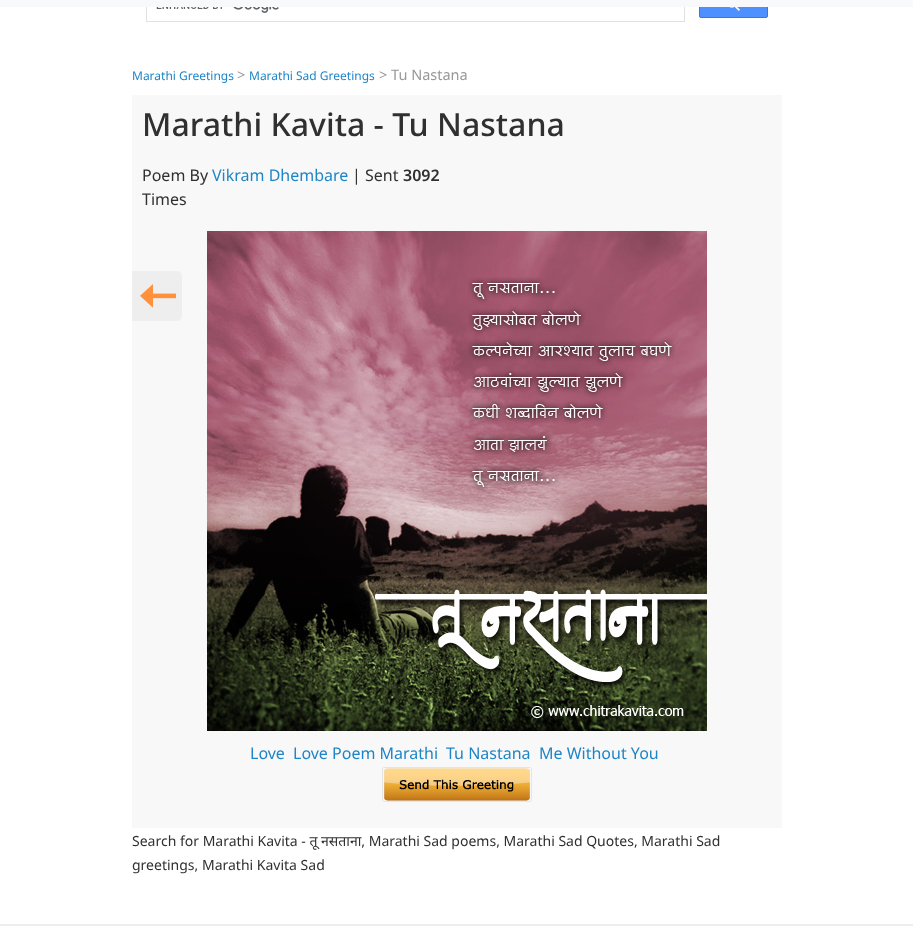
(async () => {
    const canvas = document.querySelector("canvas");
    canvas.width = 913;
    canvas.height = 926;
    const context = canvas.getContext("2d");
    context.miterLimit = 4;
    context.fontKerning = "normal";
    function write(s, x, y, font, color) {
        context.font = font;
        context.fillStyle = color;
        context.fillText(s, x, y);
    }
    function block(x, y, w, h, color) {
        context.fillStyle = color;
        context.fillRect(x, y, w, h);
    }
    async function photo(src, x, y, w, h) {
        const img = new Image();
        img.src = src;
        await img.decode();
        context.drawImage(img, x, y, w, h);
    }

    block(0, 0, 913, 926, "rgb(255, 255, 255)");
    context.strokeStyle = "rgb(223, 225, 229)";
    context.strokeRect(146.5, -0.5, 538, 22);
    context.fillStyle = "rgb(77, 144, 254)";
    context.beginPath();
    context.roundRect(699.5, -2.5, 68, 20, 1.5);
    context.fill();
    context.strokeStyle = "rgb(48, 121, 237)";
    context.stroke();
    block(0, 0, 913, 7, "rgb(248, 249, 250)");
    await photo("media/1.png", 156, 7, 123, 6);
    await photo("media/2.png", 729, 7, 11, 4);
    write("Marathi Greetings", 132, 80, "12px Noto Sans", "rgb(29, 133, 199)");
    write(">", 237, 80, "14.5px Noto Sans", "rgb(153, 153, 153)");
    write("Marathi Sad Greetings", 249, 80, "12px Noto Sans", "rgb(29, 133, 199)");
    write("> Tu Nastana", 379, 80, "14.5px Noto Sans", "rgb(153, 153, 153)");
    block(132, 95, 650, 733, "rgb(248, 248, 248)");
    write("Marathi Kavita - Tu Nastana", 142, 136, "500 32px Noto Sans", "rgb(48, 48, 48)");
    write("Poem By", 142, 181, "16px Noto Sans", "rgb(48, 48, 48)");
    write("Vikram Dhembare", 212, 181, "16px Noto Sans", "rgb(29, 133, 199)");
    write("| Sent", 352, 181, "16px Noto Sans", "rgb(48, 48, 48)");
    write("3092", 403, 181, "600 16px Noto Sans", "rgb(48, 48, 48)");
    write("Times", 142, 205, "16px Noto Sans", "rgb(48, 48, 48)");
    context.fillStyle = "rgb(238, 238, 238)";
    context.beginPath();
    context.roundRect(132, 271, 50, 50, [0, 5, 5, 0]);
    context.fill();
    await photo("media/3.png", 140, 284, 36, 24);
    await photo("media/4.png", 207, 231, 500, 500);
    write("Love", 250, 759, "16px Noto Sans", "rgb(29, 133, 199)");
    write("Love Poem Marathi", 293, 759, "16px Noto Sans", "rgb(29, 133, 199)");
    write("Tu Nastana", 446, 759, "16px Noto Sans", "rgb(29, 133, 199)");
    write("Me Without You", 539, 759, "16px Noto Sans", "rgb(29, 133, 199)");
    await photo("media/5.png", 382, 767, 150, 35);
    write("Search for Marathi Kavita - तू नसताना, Marathi Sad poems, Marathi Sad Quotes, Marathi Sad", 132, 846, "14px Noto Sans", "rgb(48, 48, 48)");
    write("greetings, Marathi Kavita Sad", 132, 870, "14px Noto Sans", "rgb(48, 48, 48)");
    block(0, 924, 913, 2, "rgb(238, 238, 238)");
})();
